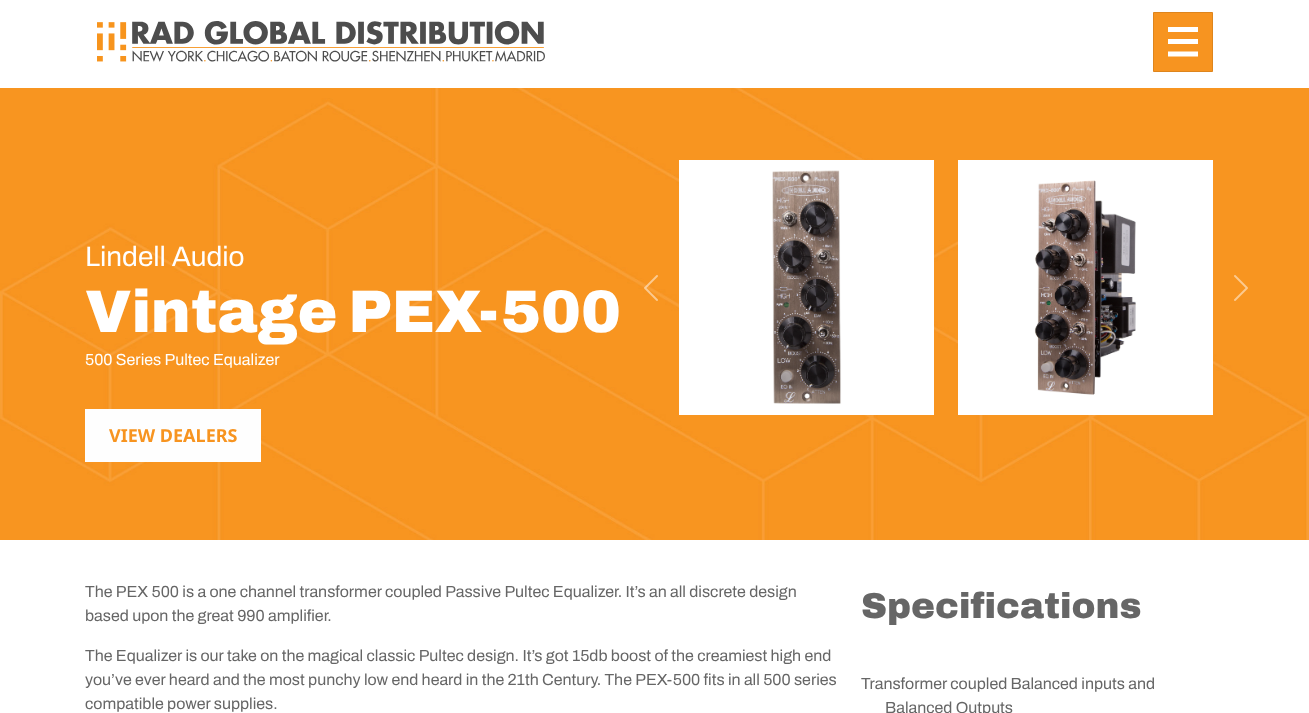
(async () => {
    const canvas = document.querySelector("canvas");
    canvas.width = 1309;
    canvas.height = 713;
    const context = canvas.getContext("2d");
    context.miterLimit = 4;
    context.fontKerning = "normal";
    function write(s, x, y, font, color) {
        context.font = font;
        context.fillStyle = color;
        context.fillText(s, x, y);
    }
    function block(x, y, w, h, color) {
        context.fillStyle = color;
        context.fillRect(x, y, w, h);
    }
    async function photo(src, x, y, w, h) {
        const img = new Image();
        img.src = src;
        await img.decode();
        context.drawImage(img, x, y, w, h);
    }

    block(0, 0, 1309, 713, "rgb(255, 255, 255)");
    await photo("media/1.png", 97, 21, 448, 41);
    context.fillStyle = "rgb(247, 148, 32)";
    context.beginPath();
    context.rect(1153.5, 12.5, 59, 59);
    context.fill();
    context.strokeStyle = "rgb(222, 133, 29)";
    context.stroke();
    context.beginPath();
    context.moveTo(1168, 29.5);
    context.lineTo(1198, 29.5);
    context.moveTo(1168, 41.5);
    context.lineTo(1198, 41.5);
    context.moveTo(1168, 54);
    context.lineTo(1198, 54);
    context.strokeStyle = "rgb(255, 255, 255)";
    context.lineWidth = 4.8;
    context.stroke();
    await photo("media/2.png", 0, 88, 1309, 452);
    write("Lindell Audio", 85, 266, "28px Archivo", "rgb(255, 255, 255)");
    write("Vintage PEX-500", 85, 332, "900 60px Archivo", "rgb(255, 255, 255)");
    write("500 Series Pultec Equalizer", 85, 365, "16px Archivo", "rgb(255, 255, 255)");
    block(85, 409, 176, 53, "rgb(254, 254, 254)");
    write("VIEW DEALERS", 109, 442, "bold 18px Noto Sans", "rgb(247, 148, 32)");
    await photo("media/3.png", 644, 275, 14, 26);
    await photo("media/4.png", 679, 160, 255, 255);
    await photo("media/5.png", 958, 160, 255, 255);
    await photo("media/6.png", 1234, 275, 14, 26);
    write("The PEX 500 is a one channel transformer coupled Passive Pultec Equalizer. It’s an all discrete design", 85, 597, "16px Archivo", "rgb(102, 102, 102)");
    write("based upon the great 990 amplifier.", 85, 621, "16px Archivo", "rgb(102, 102, 102)");
    write("The Equalizer is our take on the magical classic Pultec design. It’s got 15db boost of the creamiest high end", 85, 661, "16px Archivo", "rgb(102, 102, 102)");
    write("you’ve ever heard and the most punchy low end heard in the 21th Century. The PEX-500 fits in all 500 series", 85, 685, "16px Archivo", "rgb(102, 102, 102)");
    write("compatible power supplies.", 85, 709, "16px Archivo", "rgb(102, 102, 102)");
    write("Specifications", 861, 618, "900 36px Archivo", "rgb(102, 102, 102)");
    write("Transformer coupled Balanced inputs and", 861, 689, "16px Archivo", "rgb(102, 102, 102)");
    write("Balanced Outputs", 885, 713, "16px Archivo", "rgb(102, 102, 102)");
})();
